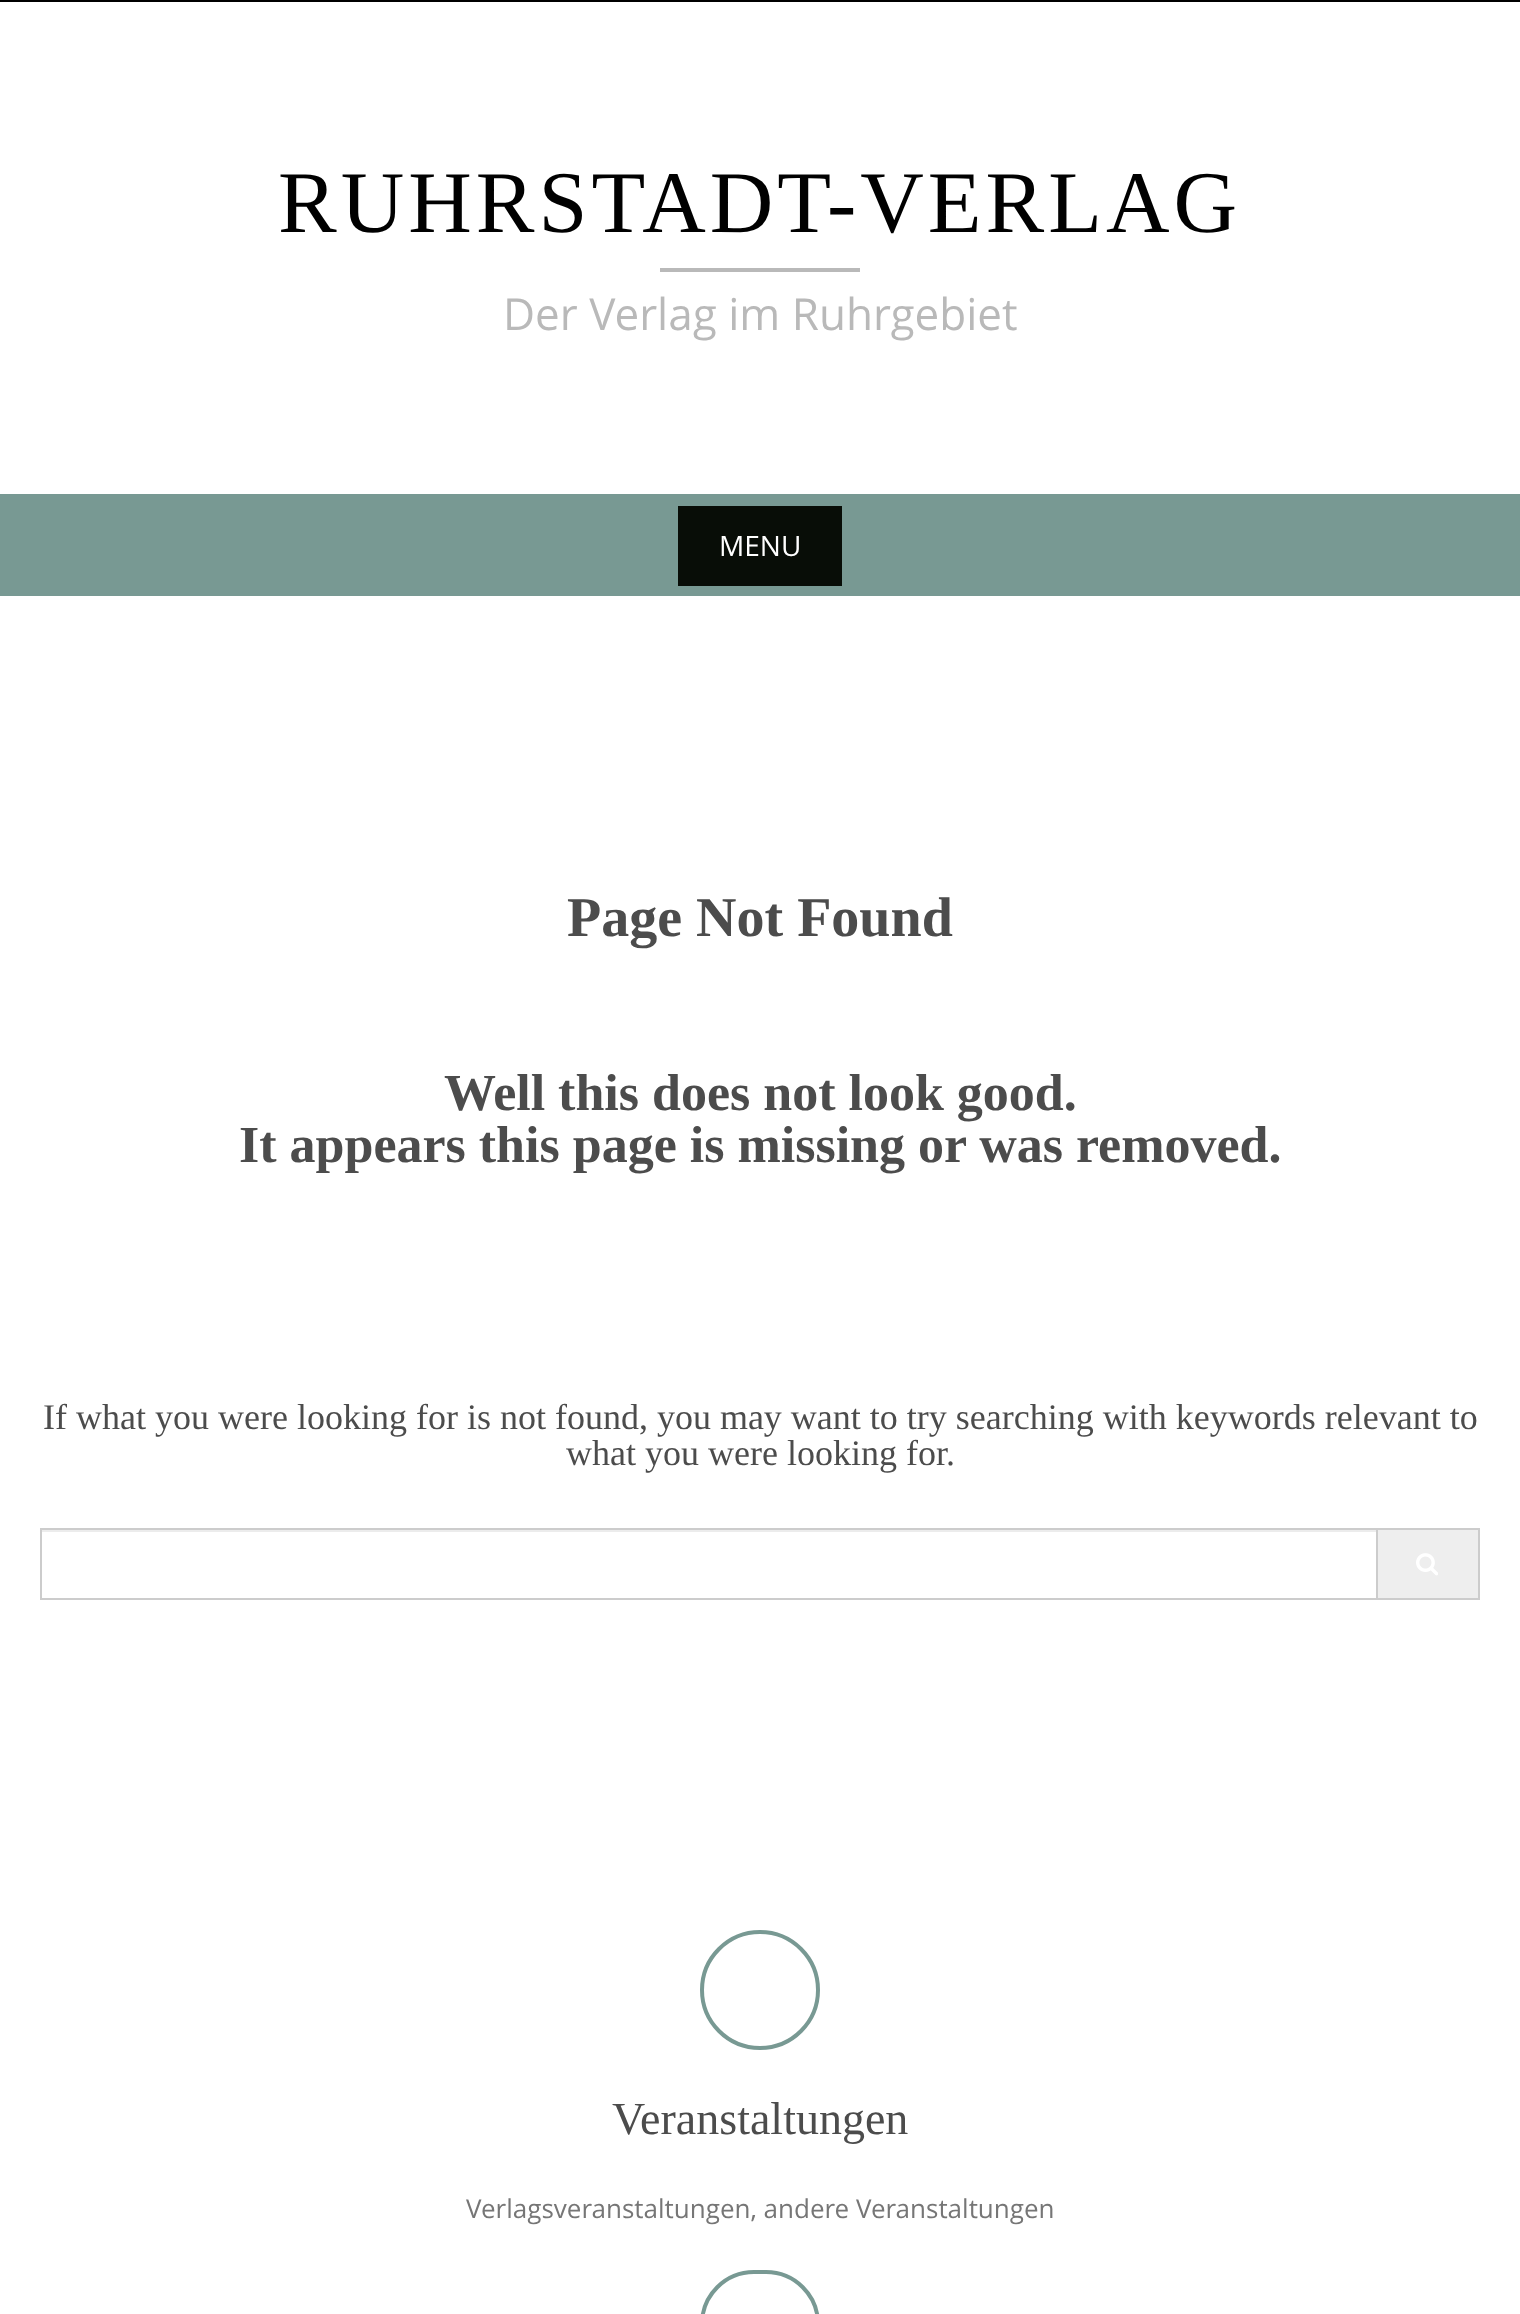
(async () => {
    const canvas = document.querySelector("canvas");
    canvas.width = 1520;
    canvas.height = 2314;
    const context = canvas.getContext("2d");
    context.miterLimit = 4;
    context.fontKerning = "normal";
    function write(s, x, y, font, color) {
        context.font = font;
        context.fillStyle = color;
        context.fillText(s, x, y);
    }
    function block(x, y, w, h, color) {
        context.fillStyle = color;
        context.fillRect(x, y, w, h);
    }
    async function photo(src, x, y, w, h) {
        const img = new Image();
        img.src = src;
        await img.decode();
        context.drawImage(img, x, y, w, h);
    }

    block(0, 0, 1520, 2314, "rgb(0, 0, 0)");
    block(0, 2, 1520, 492, "rgb(255, 255, 255)");
    context.letterSpacing = "4px";
    write("RUHRSTADT-VERLAG", 278, 232, "88px Liberation Serif", "rgb(0, 0, 0)");
    block(660, 268, 200, 4, "rgb(185, 185, 185)");
    context.letterSpacing = "0px";
    write("Der Verlag im Ruhrgebiet", 503, 330, "44px Open Sans", "rgb(185, 185, 185)");
    block(0, 494, 1520, 102, "rgb(120, 153, 147)");
    block(678, 506, 164, 80, "rgb(8, 13, 7)");
    write("MENU", 719, 556, "28px Open Sans", "rgb(255, 255, 255)");
    block(0, 596, 1520, 1718, "rgb(255, 255, 255)");
    write("Page Not Found", 567, 936, "bold 56px Liberation Serif", "rgb(76, 76, 76)");
    write("Well this does not look good.", 444, 1110, "bold 52px Liberation Serif", "rgb(76, 76, 76)");
    write("It appears this page is missing or was removed.", 239, 1162, "bold 52px Liberation Serif", "rgb(76, 76, 76)");
    write("If what you were looking for is not found, you may want to try searching with keywords relevant to", 43, 1429, "36px Liberation Serif", "rgb(76, 76, 76)");
    write("what you were looking for.", 566, 1465, "36px Liberation Serif", "rgb(76, 76, 76)");
    block(1378, 1530, 100, 68, "rgb(238, 238, 238)");
    context.strokeStyle = "rgb(204, 204, 204)";
    context.lineWidth = 2;
    context.strokeRect(1375, 1529, 104, 70);
    block(1374, 1532, 2, 66, "rgb(255, 255, 255)");
    block(42, 1530, 1334, 2, "rgb(236, 236, 236)");
    context.strokeRect(41, 1529, 1336, 70);
    await photo("media/1.png", 1416, 1553, 22, 23);
    context.beginPath();
    context.arc(760, 1990, 58, 0, Math.PI * 2);
    context.strokeStyle = "rgb(120, 153, 147)";
    context.lineWidth = 4;
    context.stroke();
    write("Veranstaltungen", 612, 2134, "46px Liberation Serif", "rgb(76, 76, 76)");
    write("Verlagsveranstaltungen, andere Veranstaltungen", 466, 2218, "26px Open Sans", "rgb(118, 118, 118)");
    context.beginPath();
    context.roundRect(702, 2272, 116, 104, 58);
    context.stroke();
})();
